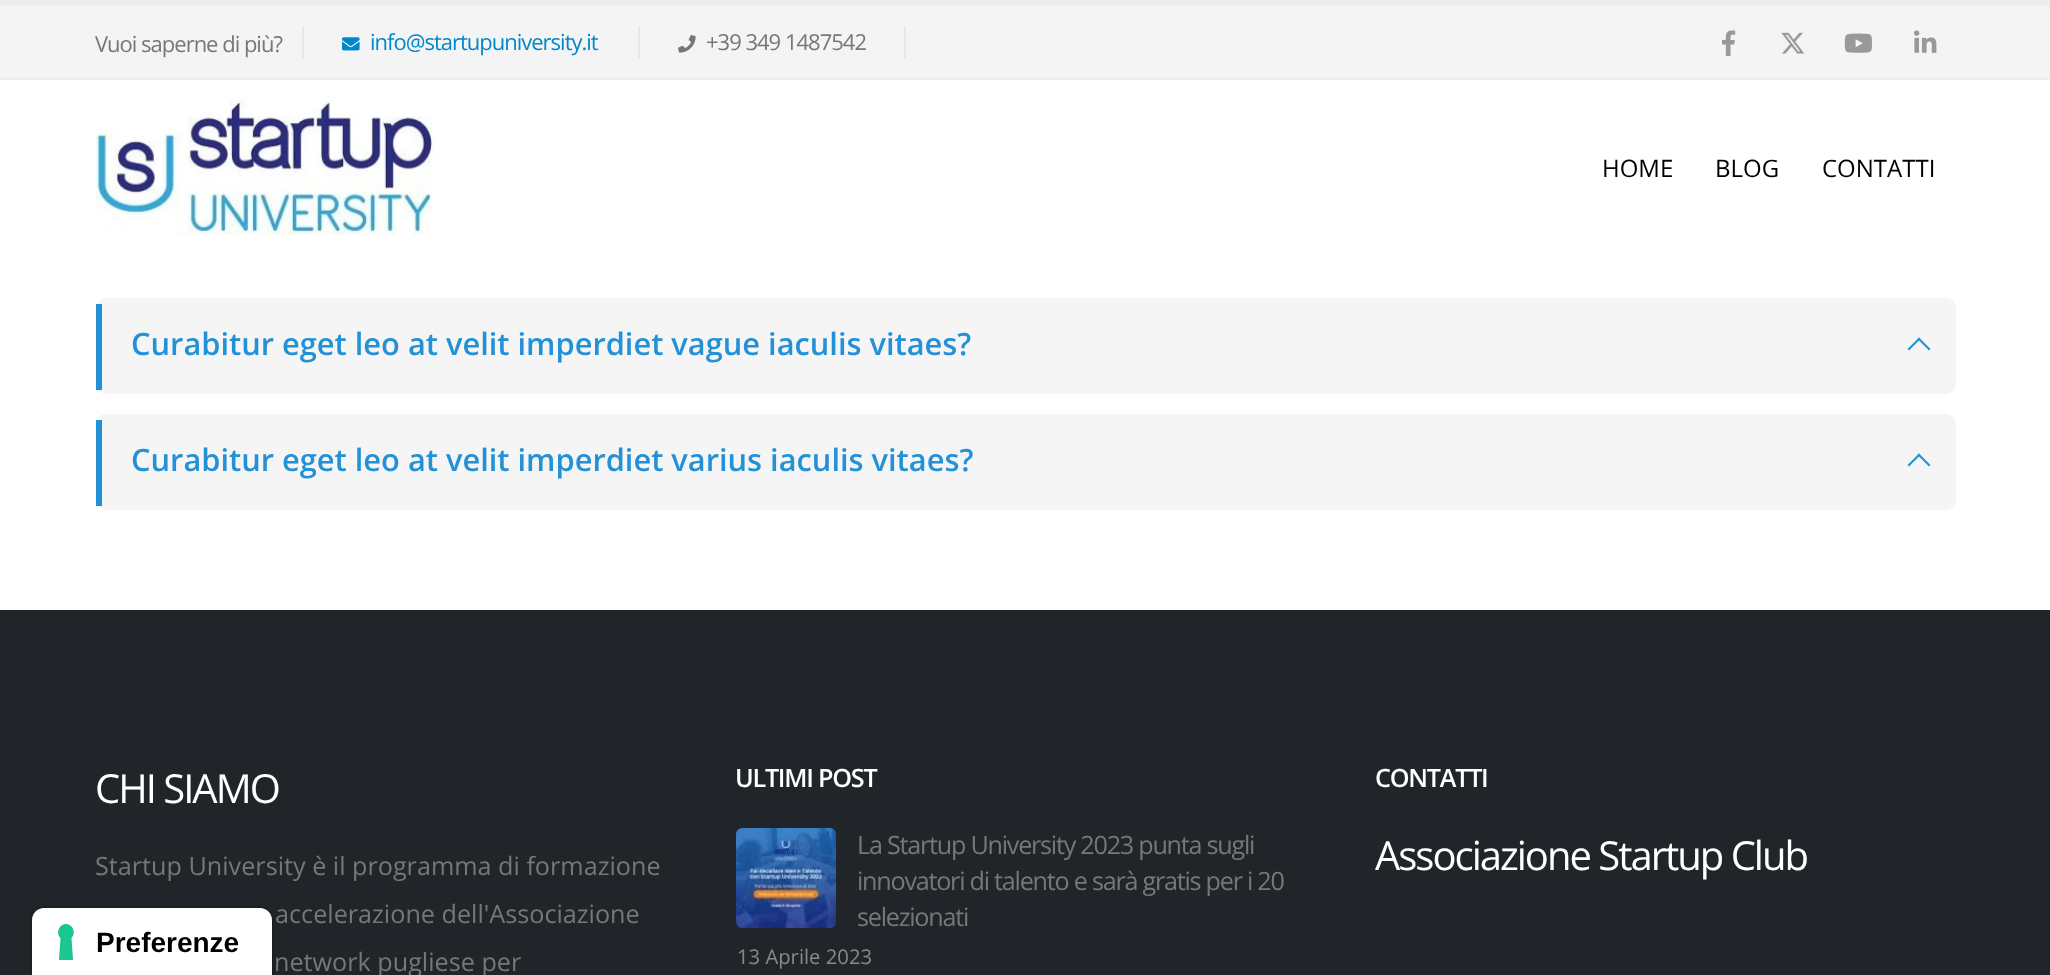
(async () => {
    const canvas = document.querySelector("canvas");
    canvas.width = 2050;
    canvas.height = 975;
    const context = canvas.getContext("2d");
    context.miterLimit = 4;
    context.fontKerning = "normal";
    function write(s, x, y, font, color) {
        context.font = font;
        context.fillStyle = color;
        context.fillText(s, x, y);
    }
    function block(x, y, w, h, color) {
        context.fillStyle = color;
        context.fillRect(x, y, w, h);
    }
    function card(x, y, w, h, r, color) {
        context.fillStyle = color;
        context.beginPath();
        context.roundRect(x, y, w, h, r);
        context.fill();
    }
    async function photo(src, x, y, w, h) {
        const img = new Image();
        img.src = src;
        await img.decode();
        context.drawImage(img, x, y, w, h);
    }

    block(0, 0, 2050, 975, "rgb(255, 255, 255)");
    block(0, 0, 2050, 6, "rgb(237, 237, 237)");
    block(0, 6, 2050, 72, "rgb(244, 244, 244)");
    block(0, 78, 2050, 2, "rgb(237, 237, 237)");
    context.letterSpacing = "-1px";
    write("Vuoi saperne di più?", 95, 52, "22px Open Sans", "rgb(119, 119, 119)");
    block(302, 26, 2, 32, "rgb(232, 232, 232)");
    await photo("media/1.png", 342, 37, 18, 14);
    write("info@startupuniversity.it", 370, 50, "22px Open Sans", "rgb(0, 136, 204)");
    block(638, 26, 2, 32, "rgb(232, 232, 232)");
    await photo("media/2.png", 678, 35, 18, 18);
    write("+39 349 1487542", 706, 50, "22px Open Sans", "rgb(119, 119, 119)");
    block(904, 26, 2, 32, "rgb(232, 232, 232)");
    await photo("media/3.png", 1722, 30, 14, 26);
    await photo("media/4.png", 1781, 32, 24, 22);
    await photo("media/5.png", 1844, 33, 29, 20);
    await photo("media/6.png", 1914, 30, 23, 23);
    await photo("media/7.png", 96, 100, 339, 135);
    context.letterSpacing = "0px";
    write("HOME", 1602, 177, "24px Open Sans", "rgb(0, 0, 0)");
    write("BLOG", 1715, 177, "24px Open Sans", "rgb(0, 0, 0)");
    write("CONTATTI", 1822, 177, "24px Open Sans", "rgb(0, 0, 0)");
    card(96, 298, 1860, 96, 10, "rgb(245, 245, 245)");
    block(96, 304, 6, 86, "rgb(34, 145, 214)");
    write("Curabitur eget leo at velit imperdiet vague iaculis vitaes?", 131, 355, "600 30.8px Open Sans", "rgb(34, 145, 214)");
    context.beginPath();
    context.moveTo(1907.5, 349);
    context.lineTo(1919, 337.5);
    context.lineTo(1920.5, 339);
    context.lineTo(1909, 350.5);
    context.closePath();
    context.fill();
    context.beginPath();
    context.moveTo(1917.5, 339);
    context.lineTo(1919, 337.5);
    context.lineTo(1930.5, 349);
    context.lineTo(1929, 350.5);
    context.closePath();
    context.fill();
    card(96, 414, 1860, 96, 10, "rgb(245, 245, 245)");
    block(96, 420, 6, 86, "rgb(34, 145, 214)");
    write("Curabitur eget leo at velit imperdiet varius iaculis vitaes?", 131, 471, "600 30.8px Open Sans", "rgb(34, 145, 214)");
    context.beginPath();
    context.moveTo(1907.5, 465);
    context.lineTo(1919, 453.5);
    context.lineTo(1920.5, 455);
    context.lineTo(1909, 466.5);
    context.closePath();
    context.fill();
    context.beginPath();
    context.moveTo(1917.5, 455);
    context.lineTo(1919, 453.5);
    context.lineTo(1930.5, 465);
    context.lineTo(1929, 466.5);
    context.closePath();
    context.fill();
    block(0, 610, 2050, 365, "rgb(33, 37, 41)");
    context.letterSpacing = "-2px";
    write("CHI SIAMO", 95, 803, "40px Open Sans", "rgb(255, 255, 255)");
    context.letterSpacing = "0px";
    write("Startup University è il programma di formazione", 95, 875, "25.2px Open Sans", "rgb(119, 119, 119)");
    write("accelerazione dell'Associazione", 275, 923, "25.2px Open Sans", "rgb(119, 119, 119)");
    write("network pugliese per", 274, 971, "25.2px Open Sans", "rgb(119, 119, 119)");
    context.letterSpacing = "-1.25px";
    write("ULTIMI POST", 735, 787, "600 25.2px Open Sans", "rgb(255, 255, 255)");
    await photo("media/8.png", 736, 828, 100, 100);
    write("La Startup University 2023 punta sugli", 857, 854, "25.2px Open Sans", "rgb(119, 119, 119)");
    write("innovatori di talento e sarà gratis per i 20", 857, 890, "25.2px Open Sans", "rgb(119, 119, 119)");
    write("selezionati", 857, 926, "25.2px Open Sans", "rgb(119, 119, 119)");
    context.letterSpacing = "0px";
    write("13 Aprile 2023", 737, 964, "20.25px Open Sans", "rgb(137, 137, 137)");
    context.letterSpacing = "-1.25px";
    write("CONTATTI", 1375, 787, "600 25.2px Open Sans", "rgb(255, 255, 255)");
    context.letterSpacing = "-2px";
    write("Associazione Startup Club", 1375, 870, "40px Open Sans", "rgb(255, 255, 255)");
    context.beginPath();
    context.moveTo(44, 907);
    context.lineTo(260, 907);
    context.bezierCurveTo(267, 907, 273, 913, 273, 920);
    context.lineTo(273, 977);
    context.lineTo(31, 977);
    context.lineTo(31, 920);
    context.bezierCurveTo(31, 913, 37, 907, 44, 907);
    context.closePath();
    context.strokeStyle = "rgba(0, 0, 0, 0.15)";
    context.lineWidth = 2;
    context.stroke();
    context.beginPath();
    context.moveTo(44, 908);
    context.lineTo(260, 908);
    context.bezierCurveTo(266.5, 908, 272, 913.5, 272, 920);
    context.lineTo(272, 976);
    context.lineTo(32, 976);
    context.lineTo(32, 920);
    context.bezierCurveTo(32, 913.5, 37.5, 908, 44, 908);
    context.closePath();
    context.fill();
    context.fillStyle = "rgb(28, 198, 145)";
    context.beginPath();
    context.moveTo(66, 924);
    context.bezierCurveTo(73, 924, 76.5, 933.5, 71.5, 938);
    context.lineTo(73, 960);
    context.lineTo(59, 960);
    context.lineTo(60.5, 938);
    context.bezierCurveTo(55.5, 933.5, 59, 924, 66, 924);
    context.closePath();
    context.fill("evenodd");
    context.letterSpacing = "0px";
    write("Preferenze", 96, 952, "bold 28px Liberation Sans", "rgb(0, 0, 0)");
})();
